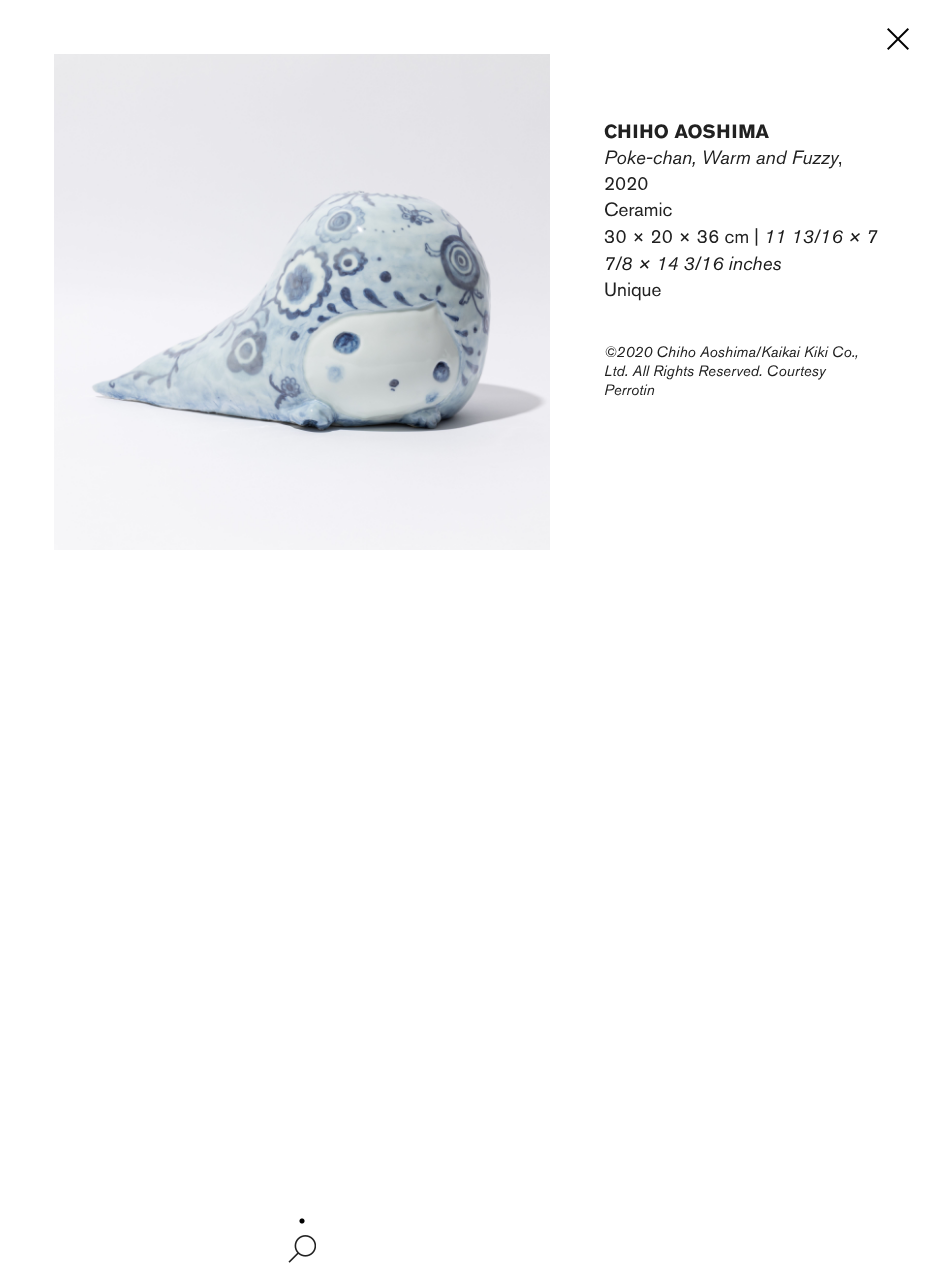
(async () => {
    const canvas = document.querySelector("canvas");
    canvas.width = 933;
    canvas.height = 1281;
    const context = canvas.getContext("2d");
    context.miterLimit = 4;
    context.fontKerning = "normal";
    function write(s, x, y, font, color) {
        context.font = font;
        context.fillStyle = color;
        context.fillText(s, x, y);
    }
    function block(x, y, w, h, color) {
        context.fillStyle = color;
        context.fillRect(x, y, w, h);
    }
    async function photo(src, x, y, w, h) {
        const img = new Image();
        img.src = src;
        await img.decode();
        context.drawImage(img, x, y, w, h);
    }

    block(0, 0, 933, 1281, "rgb(255, 255, 255)");
    await photo("media/1.png", 887, 28, 22, 22);
    await photo("media/2.png", 54, 54, 496, 496);
    await photo("media/3.png", 299, 1218, 6, 6);
    await photo("media/4.png", 288, 1235, 28, 28);
    write("CHIHO AOSHIMA", 604, 138, "bold 19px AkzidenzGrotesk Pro", "rgb(33, 33, 33)");
    write("Poke-chan, Warm and Fuzzy", 604, 164, "italic 19px AkzidenzGrotesk Pro", "rgb(33, 33, 33)");
    write(",", 838, 164, "19px AkzidenzGrotesk Pro", "rgb(33, 33, 33)");
    write("2020", 604, 190, "19px AkzidenzGrotesk Pro", "rgb(33, 33, 33)");
    write("Ceramic", 604, 216, "19px AkzidenzGrotesk Pro", "rgb(33, 33, 33)");
    write("30 × 20 × 36 cm |", 604, 243, "19px AkzidenzGrotesk Pro", "rgb(33, 33, 33)");
    write("11 13/16 × 7", 764, 243, "italic 19px AkzidenzGrotesk Pro", "rgb(26, 26, 26)");
    write("7/8 × 14 3/16 inches", 604, 270, "italic 19px AkzidenzGrotesk Pro", "rgb(26, 26, 26)");
    write("Unique", 604, 296, "19px AkzidenzGrotesk Pro", "rgb(33, 33, 33)");
    write("©2020 Chiho Aoshima/Kaikai Kiki Co.,", 604, 357, "italic 15px AkzidenzGrotesk Pro", "rgb(33, 33, 33)");
    write("Ltd. All Rights Reserved. Courtesy", 604, 376, "italic 15px AkzidenzGrotesk Pro", "rgb(33, 33, 33)");
    write("Perrotin", 604, 395, "italic 15px AkzidenzGrotesk Pro", "rgb(33, 33, 33)");
})();
